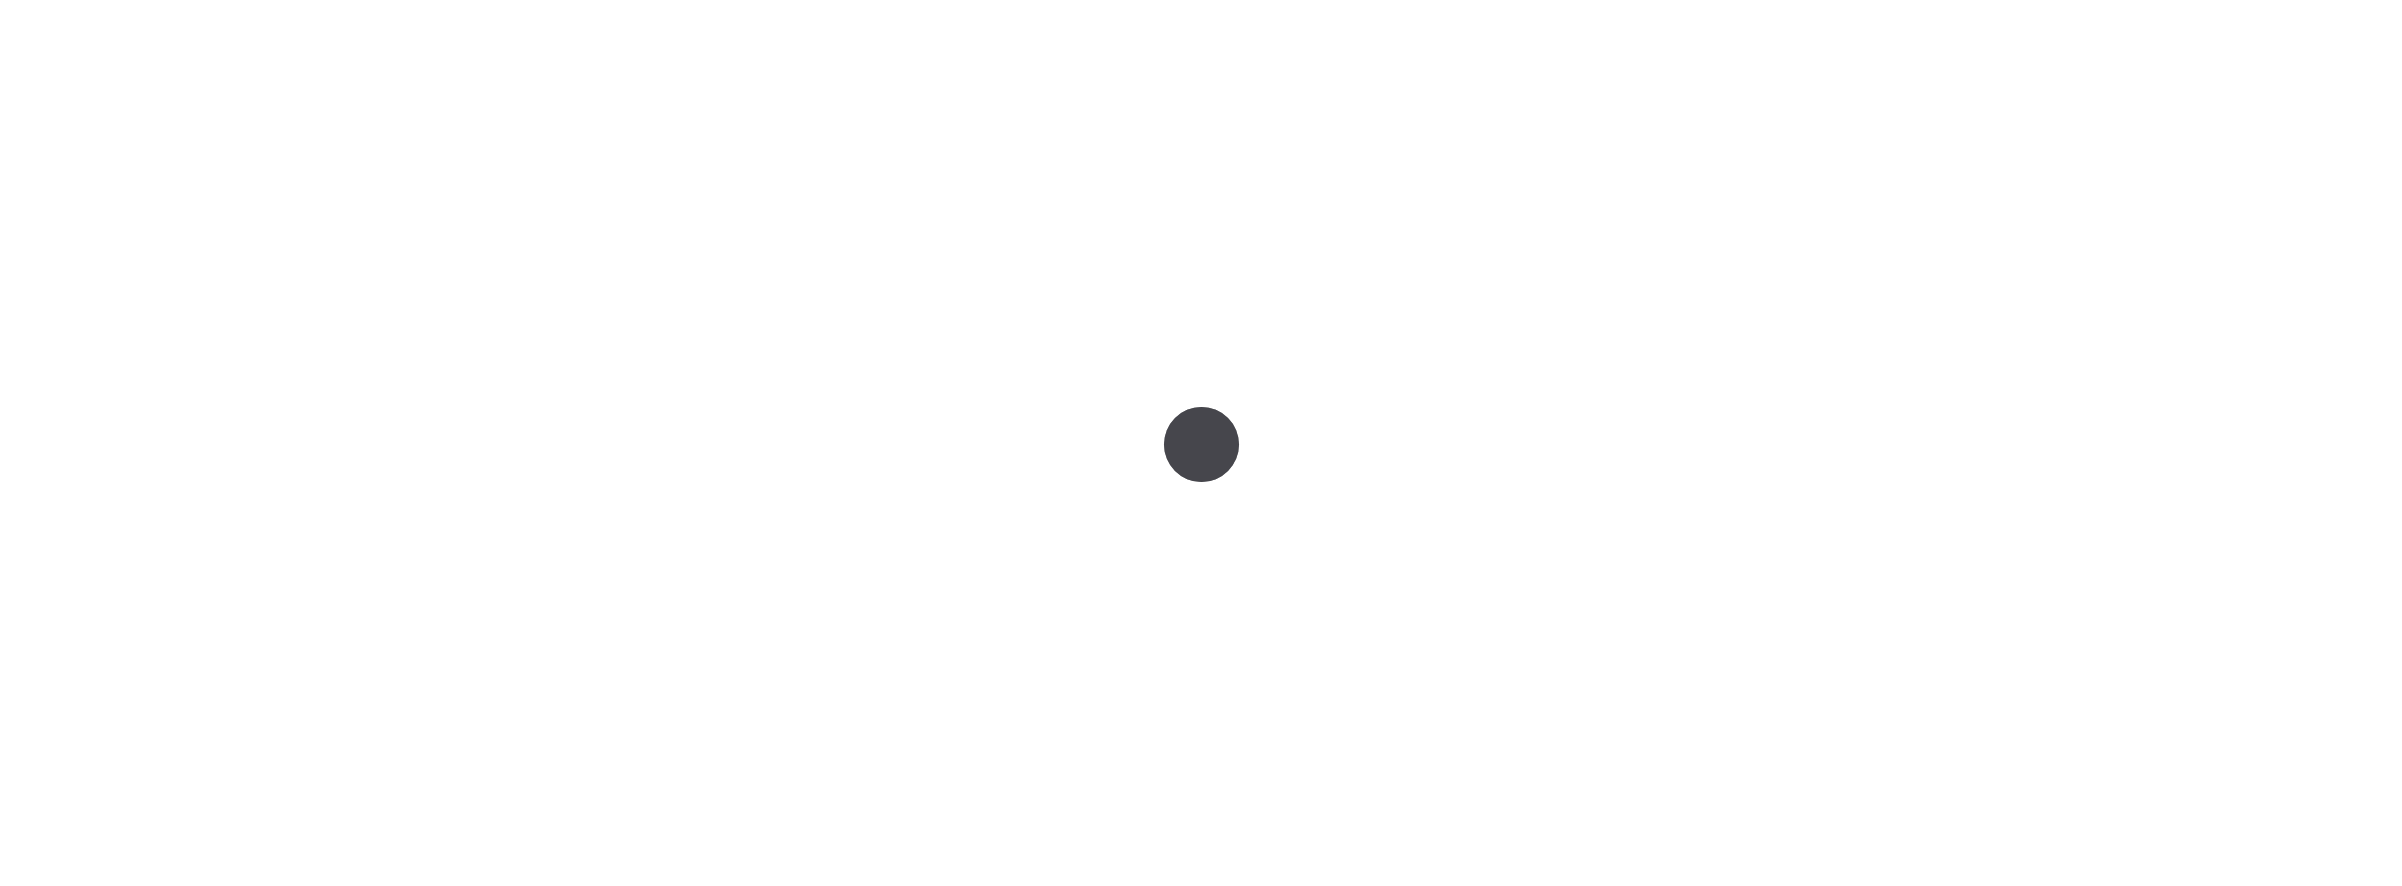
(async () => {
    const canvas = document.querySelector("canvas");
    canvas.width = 2402;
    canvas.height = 886;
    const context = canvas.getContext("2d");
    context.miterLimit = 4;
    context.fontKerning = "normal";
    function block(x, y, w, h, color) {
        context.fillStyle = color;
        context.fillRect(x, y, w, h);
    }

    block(0, 0, 2402, 886, "rgb(255, 255, 255)");
    context.fillStyle = "rgb(101, 101, 106)";
    context.beginPath();
    context.arc(1201.5, 444.5, 37.5, 0, Math.PI * 2);
    context.fill();
    context.fillStyle = "rgba(63, 62, 69, 0.8)";
    context.beginPath();
    context.arc(1201.5, 444.5, 37.5, 0, Math.PI * 2);
    context.fill();
})();
